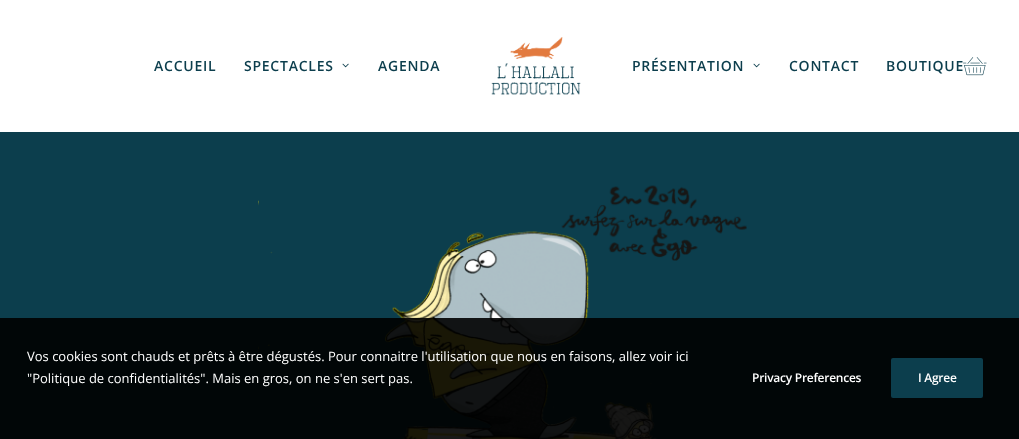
(async () => {
    const canvas = document.querySelector("canvas");
    canvas.width = 1019;
    canvas.height = 439;
    const context = canvas.getContext("2d");
    context.miterLimit = 4;
    context.fontKerning = "normal";
    function write(s, x, y, font, color) {
        context.font = font;
        context.fillStyle = color;
        context.fillText(s, x, y);
    }
    function block(x, y, w, h, color) {
        context.fillStyle = color;
        context.fillRect(x, y, w, h);
    }
    function card(x, y, w, h, r, color) {
        context.fillStyle = color;
        context.beginPath();
        context.roundRect(x, y, w, h, r);
        context.fill();
    }
    async function photo(src, x, y, w, h) {
        const img = new Image();
        img.src = src;
        await img.decode();
        context.drawImage(img, x, y, w, h);
    }

    block(0, 0, 1019, 439, "rgb(255, 255, 255)");
    context.letterSpacing = "0.75px";
    write("ACCUEIL", 154, 71, "600 14px Open Sans", "rgb(12, 62, 77)");
    write("SPECTACLES", 244, 71, "600 14px Open Sans", "rgb(12, 62, 77)");
    await photo("media/1.png", 342, 63, 7, 5);
    write("AGENDA", 378, 71, "600 14px Open Sans", "rgb(12, 62, 77)");
    await photo("media/2.png", 491, 37, 90, 58);
    write("PRÉSENTATION", 632, 71, "600 14px Open Sans", "rgb(12, 62, 77)");
    await photo("media/1.png", 753, 63, 7, 5);
    write("CONTACT", 789, 71, "600 14px Open Sans", "rgb(12, 62, 77)");
    write("BOUTIQUE", 886, 71, "600 14px Open Sans", "rgb(12, 62, 77)");
    await photo("media/3.png", 963, 57, 24, 19);
    block(0, 132, 1019, 307, "rgb(12, 62, 77)");
    await photo("media/4.png", 258, 185, 489, 254);
    block(0, 318, 1019, 121, "rgba(0, 0, 0, 0.9)");
    context.letterSpacing = "0px";
    write("Vos cookies sont chauds et prêts à être dégustés. Pour connaitre l'utilisation que nous en faisons, allez voir ici", 27, 361, "13px Open Sans", "rgb(255, 255, 255)");
    write("\"Politique de confidentialités\". Mais en gros, on ne s'en sert pas.", 27, 383, "13px Open Sans", "rgb(255, 255, 255)");
    context.letterSpacing = "-0.25px";
    write("Privacy Preferences", 752, 382, "600 12px Open Sans", "rgb(255, 255, 255)");
    card(891, 358, 92, 40, 2, "rgb(12, 62, 77)");
    write("I Agree", 918, 382, "600 12px Open Sans", "rgb(255, 255, 255)");
})();
